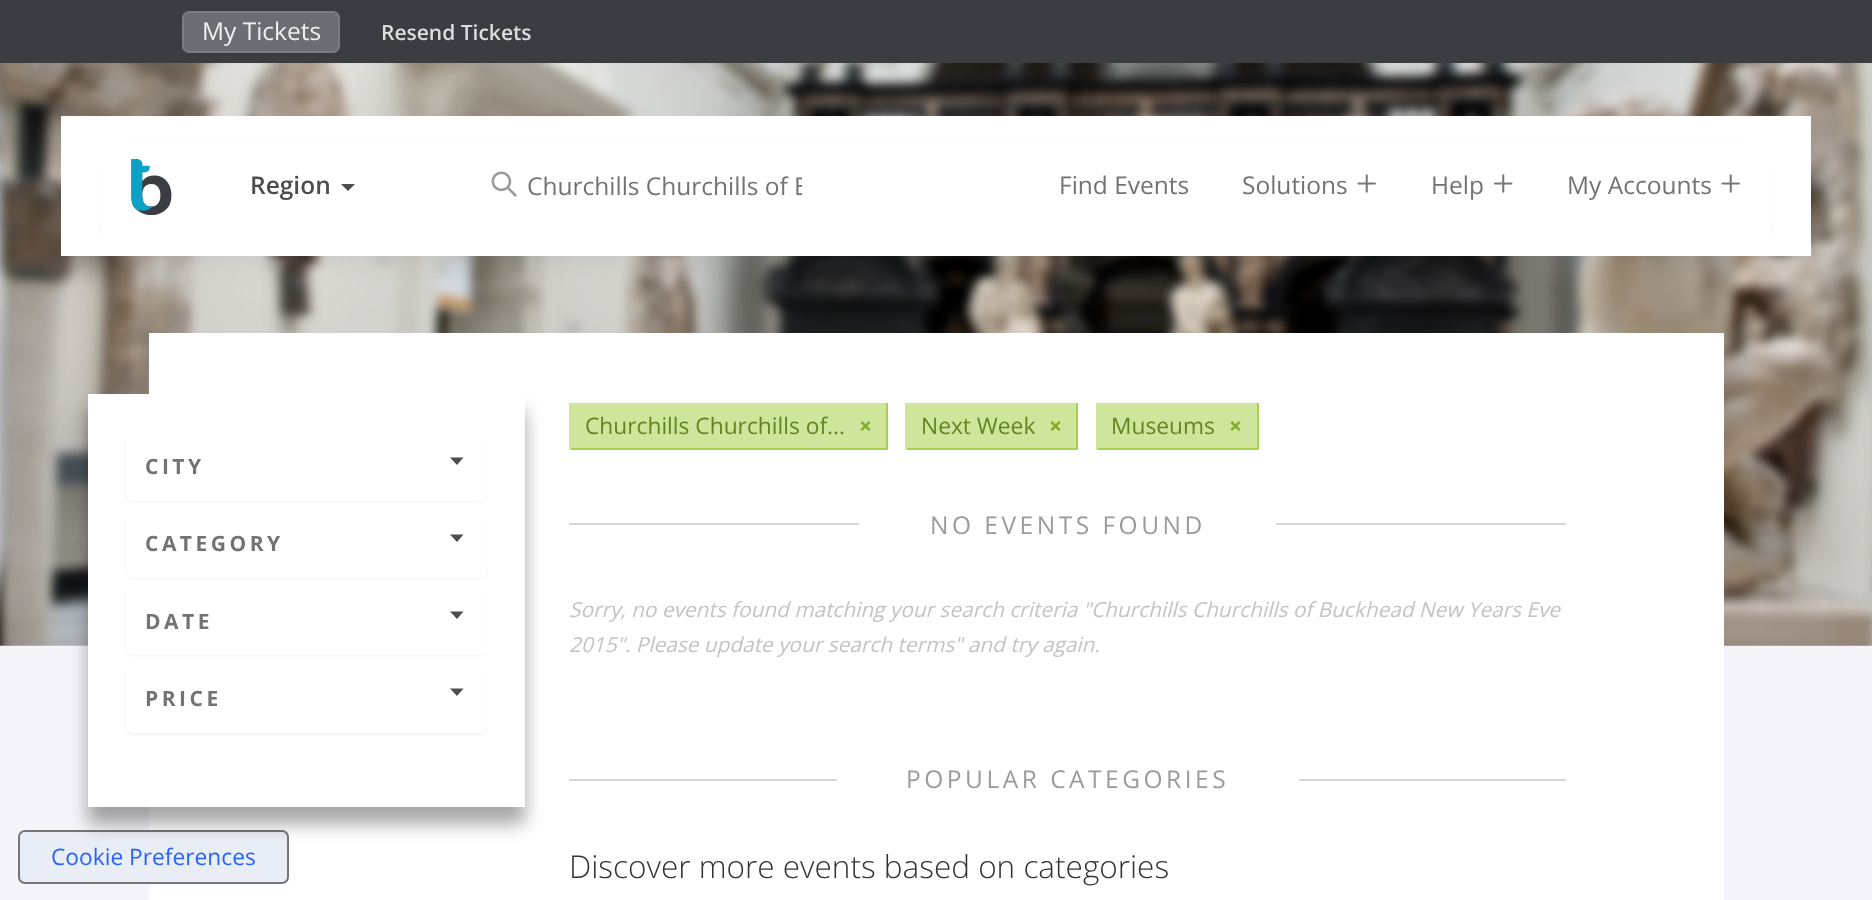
(async () => {
    const canvas = document.querySelector("canvas");
    canvas.width = 1872;
    canvas.height = 900;
    const context = canvas.getContext("2d");
    context.miterLimit = 4;
    context.fontKerning = "normal";
    function write(s, x, y, font, color) {
        context.font = font;
        context.fillStyle = color;
        context.fillText(s, x, y);
    }
    function block(x, y, w, h, color) {
        context.fillStyle = color;
        context.fillRect(x, y, w, h);
    }
    function card(x, y, w, h, r, color) {
        context.fillStyle = color;
        context.beginPath();
        context.roundRect(x, y, w, h, r);
        context.fill();
    }
    async function photo(src, x, y, w, h) {
        const img = new Image();
        img.src = src;
        await img.decode();
        context.drawImage(img, x, y, w, h);
    }

    block(0, 0, 1872, 900, "rgb(244, 244, 250)");
    await photo("media/1.png", 0, 63, 1872, 583);
    block(0, 0, 1872, 63, "rgb(60, 61, 66)");
    context.fillStyle = "rgb(108, 109, 114)";
    context.beginPath();
    context.roundRect(183, 12, 156, 40, 6);
    context.fill();
    context.strokeStyle = "rgb(124, 125, 130)";
    context.lineWidth = 2;
    context.stroke();
    write("My Tickets", 202, 40, "24.5px Open Sans", "rgb(240, 240, 240)");
    write("Resend Tickets", 381, 40, "600 21px Open Sans", "rgb(221, 221, 221)");
    block(61, 116, 1750, 140, "rgb(255, 255, 255)");
    context.fillStyle = "rgba(0, 0, 0, 0.2)";
    context.filter = "blur(17.5px)";
    context.beginPath();
    context.rect(131, 172, 1610, 70);
    context.fill();
    context.filter = "none";
    block(103, 143, 1666, 113, "rgb(255, 255, 255)");
    await photo("media/2.png", 131, 159, 41, 56);
    write("Region", 250, 194, "600 24.5px Open Sans", "rgb(77, 77, 77)");
    context.beginPath();
    context.moveTo(341, 184);
    context.lineTo(355, 184);
    context.lineTo(348, 191);
    context.closePath();
    context.fill();
    await photo("media/3.png", 491, 171, 26, 26);
    context.save();
    context.beginPath();
    context.rect(527, 170, 275, 33);
    context.clip();
    write("Churchills Churchills of B", 527, 195, "24.5px Open Sans", "rgb(115, 115, 115)");
    context.restore();
    write("Find Events", 1059, 194, "24.5px Open Sans", "rgb(115, 115, 115)");
    write("Solutions", 1242, 194, "24.5px Open Sans", "rgb(115, 115, 115)");
    await photo("media/4.png", 1357, 174, 19, 19);
    write("Help", 1431, 194, "24.5px Open Sans", "rgb(115, 115, 115)");
    await photo("media/5.png", 1494, 174, 19, 19);
    write("My Accounts", 1567, 194, "24.5px Open Sans", "rgb(115, 115, 115)");
    await photo("media/4.png", 1721, 174, 19, 19);
    block(149, 333, 1575, 567, "rgb(255, 255, 255)");
    context.fillStyle = "rgb(233, 238, 246)";
    context.beginPath();
    context.roundRect(19, 831, 269, 52, 6);
    context.fill();
    context.strokeStyle = "rgb(116, 119, 117)";
    context.stroke();
    context.fillStyle = "rgba(0, 0, 0, 0.35)";
    context.filter = "blur(9px)";
    context.beginPath();
    context.rect(88, 411, 437, 413);
    context.fill();
    context.filter = "none";
    block(88, 394, 437, 413, "rgb(255, 255, 255)");
    context.fillStyle = "rgba(0, 0, 0, 0.05)";
    context.filter = "blur(1px)";
    context.beginPath();
    context.roundRect(126, 434, 361, 68, 7);
    context.fill();
    context.filter = "none";
    card(126, 432, 361, 69, 7, "rgb(255, 255, 255)");
    context.letterSpacing = "3.5px";
    write("CITY", 145, 474, "bold 21px Open Sans", "rgb(115, 115, 115)");
    context.fillStyle = "rgb(77, 77, 77)";
    context.beginPath();
    context.moveTo(450, 457.5);
    context.lineTo(463.5, 457.5);
    context.lineTo(457, 465);
    context.closePath();
    context.fill();
    context.fillStyle = "rgba(0, 0, 0, 0.05)";
    context.filter = "blur(1px)";
    context.beginPath();
    context.roundRect(126, 511, 361, 68, 7);
    context.fill();
    context.filter = "none";
    card(126, 509, 361, 69, 7, "rgb(255, 255, 255)");
    write("CATEGORY", 145, 551, "bold 21px Open Sans", "rgb(115, 115, 115)");
    context.fillStyle = "rgb(77, 77, 77)";
    context.beginPath();
    context.moveTo(450, 534.5);
    context.lineTo(463.5, 534.5);
    context.lineTo(457, 542);
    context.closePath();
    context.fill();
    context.fillStyle = "rgba(0, 0, 0, 0.05)";
    context.filter = "blur(1px)";
    context.beginPath();
    context.roundRect(126, 588, 361, 68, 7);
    context.fill();
    context.filter = "none";
    card(126, 586, 361, 69, 7, "rgb(255, 255, 255)");
    write("DATE", 145, 629, "bold 21px Open Sans", "rgb(115, 115, 115)");
    context.fillStyle = "rgb(77, 77, 77)";
    context.beginPath();
    context.moveTo(450, 611.5);
    context.lineTo(463.5, 611.5);
    context.lineTo(457, 619);
    context.closePath();
    context.fill();
    context.fillStyle = "rgba(0, 0, 0, 0.05)";
    context.filter = "blur(1px)";
    context.beginPath();
    context.roundRect(126, 665, 361, 70, 7);
    context.fill();
    context.filter = "none";
    card(126, 663, 361, 70, 7, "rgb(255, 255, 255)");
    write("PRICE", 145, 706, "bold 21px Open Sans", "rgb(115, 115, 115)");
    context.fillStyle = "rgb(77, 77, 77)";
    context.beginPath();
    context.moveTo(450, 688.5);
    context.lineTo(463.5, 688.5);
    context.lineTo(457, 696);
    context.closePath();
    context.fill();
    block(571, 403, 315, 45, "rgb(205, 230, 156)");
    block(886, 403, 2, 47, "rgb(165, 210, 74)");
    block(569, 448, 318, 2, "rgb(165, 210, 74)");
    block(569, 403, 2, 47, "rgb(205, 230, 156)");
    context.letterSpacing = "0px";
    write("Churchills Churchills of...", 585, 434, "22.75px Open Sans", "rgb(99, 132, 33)");
    write("×", 859, 434, "bold 22.75px Open Sans", "rgb(130, 173, 43)");
    block(907, 403, 169, 45, "rgb(205, 230, 156)");
    block(1076, 403, 2, 47, "rgb(165, 210, 74)");
    block(905, 448, 173, 2, "rgb(165, 210, 74)");
    block(905, 403, 2, 47, "rgb(205, 230, 156)");
    write("Next Week", 921, 434, "22.75px Open Sans", "rgb(99, 132, 33)");
    write("×", 1049, 434, "bold 22.75px Open Sans", "rgb(130, 173, 43)");
    block(1098, 403, 159, 45, "rgb(205, 230, 156)");
    block(1257, 403, 2, 47, "rgb(165, 210, 74)");
    block(1096, 448, 162, 2, "rgb(165, 210, 74)");
    block(1096, 403, 2, 47, "rgb(205, 230, 156)");
    write("Museums", 1111, 434, "22.75px Open Sans", "rgb(99, 132, 33)");
    write("×", 1229, 434, "bold 22.75px Open Sans", "rgb(130, 173, 43)");
    block(569, 523, 290, 2, "rgb(216, 216, 216)");
    context.letterSpacing = "3.5px";
    write("NO EVENTS FOUND", 930, 534, "24.5px Open Sans", "rgb(155, 155, 155)");
    block(1276, 523, 290, 2, "rgb(216, 216, 216)");
    context.letterSpacing = "0px";
    write("Sorry, no events found matching your search criteria \"Churchills Churchills of Buckhead New Years Eve", 569, 617, "italic 20.8px Open Sans", "rgb(195, 195, 195)");
    write("2015\". Please update your search terms\" and try again.", 569, 652, "italic 20.8px Open Sans", "rgb(195, 195, 195)");
    block(569, 779, 268, 2, "rgb(216, 216, 216)");
    context.letterSpacing = "3.5px";
    write("POPULAR CATEGORIES", 906, 788, "24.5px Open Sans", "rgb(155, 155, 155)");
    block(1299, 779, 267, 2, "rgb(216, 216, 216)");
    context.letterSpacing = "0px";
    write("Discover more events based on categories", 569, 878, "300 31.5px Open Sans", "rgb(51, 51, 51)");
    write("Cookie Preferences", 51, 865, "22.75px Open Sans", "rgb(41, 98, 255)");
})();
